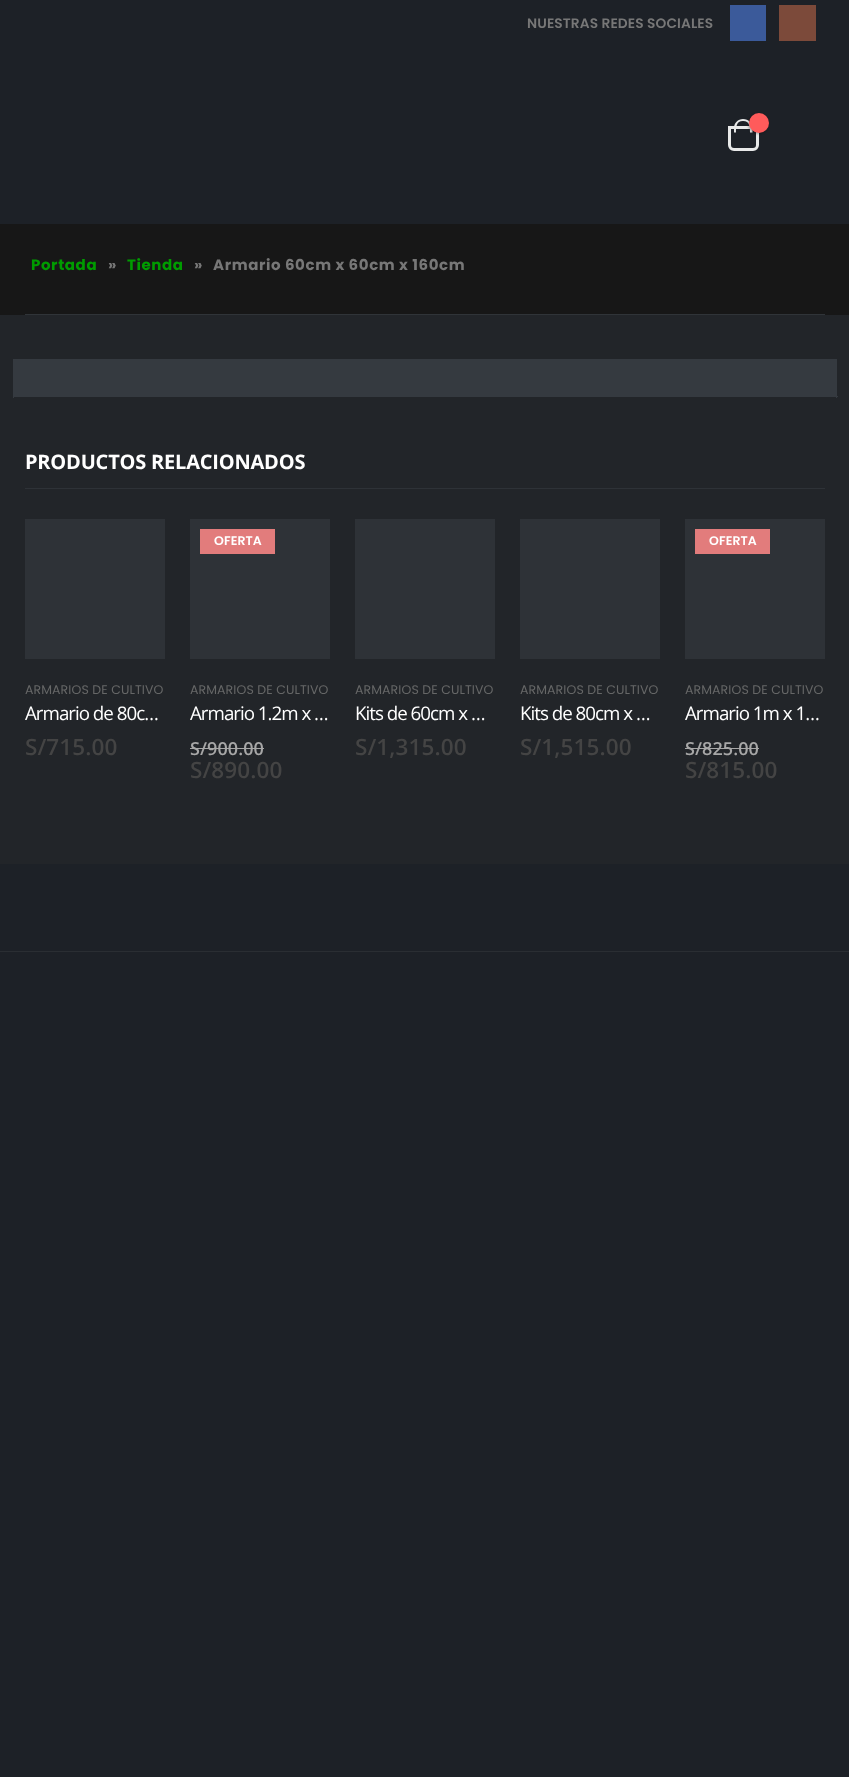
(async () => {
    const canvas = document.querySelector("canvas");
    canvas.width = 849;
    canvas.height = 1777;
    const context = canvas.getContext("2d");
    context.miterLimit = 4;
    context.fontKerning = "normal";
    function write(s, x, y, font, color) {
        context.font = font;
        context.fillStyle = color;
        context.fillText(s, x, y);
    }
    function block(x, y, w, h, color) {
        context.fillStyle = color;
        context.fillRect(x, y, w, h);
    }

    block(0, 0, 849, 1777, "rgb(29, 33, 39)");
    context.letterSpacing = "0.1px";
    write("NUESTRAS REDES SOCIALES", 527, 28, "600 13.75px Poppins", "rgb(119, 119, 119)");
    block(730, 5, 36, 36, "rgb(59, 90, 154)");
    block(779, 5, 37, 36, "rgb(124, 74, 58)");
    context.beginPath();
    context.roundRect(729.5, 127.5, 28, 22, [0, 0, 4.5, 4.5]);
    context.strokeStyle = "rgb(232, 233, 233)";
    context.lineWidth = 3;
    context.stroke();
    context.fillStyle = "rgb(232, 233, 233)";
    context.beginPath();
    context.moveTo(743, 119);
    context.bezierCurveTo(748.5, 119, 752.5, 123, 752.5, 128);
    context.lineTo(752.5, 132.5);
    context.lineTo(734, 132.5);
    context.lineTo(734, 128);
    context.bezierCurveTo(734, 123, 738, 119, 743, 119);
    context.closePath();
    context.moveTo(743, 121);
    context.bezierCurveTo(750, 121, 750, 127.5, 750, 132.5);
    context.lineTo(736, 132.5);
    context.bezierCurveTo(736, 127.5, 736, 121, 743, 121);
    context.closePath();
    context.fill("evenodd");
    context.fillStyle = "rgba(0, 0, 0, 0.3)";
    context.filter = "blur(1px)";
    context.beginPath();
    context.roundRect(748, 114, 20, 20, 10);
    context.fill();
    context.filter = "none";
    context.fillStyle = "rgb(255, 91, 91)";
    context.beginPath();
    context.arc(759, 123, 10, 0, Math.PI * 2);
    context.fill();
    block(0, 224, 849, 91, "rgb(23, 23, 23)");
    context.letterSpacing = "0.6px";
    write("Portada", 31, 270, "bold 15px Poppins", "rgb(0, 156, 0)");
    write("»", 108, 270, "bold 15px Poppins", "rgb(119, 119, 119)");
    write("Tienda", 127, 270, "bold 15px Poppins", "rgb(0, 156, 0)");
    write("»", 194, 270, "bold 15px Poppins", "rgb(119, 119, 119)");
    write("Armario 60cm x 60cm x 160cm", 213, 270, "bold 15px Poppins", "rgb(119, 119, 119)");
    block(25, 314, 800, 1, "rgb(48, 52, 56)");
    block(0, 315, 849, 549, "rgb(34, 37, 41)");
    block(14, 359, 822, 37, "rgb(53, 58, 64)");
    block(836, 359, 1, 39, "rgb(53, 58, 64)");
    block(13, 396, 825, 1, "rgb(53, 58, 64)");
    block(13, 359, 1, 39, "rgb(53, 58, 64)");
    block(25, 488, 800, 1, "rgb(46, 50, 55)");
    context.letterSpacing = "-0.2px";
    write("PRODUCTOS RELACIONADOS", 25, 469, "bold 20px Open Sans", "rgb(255, 255, 255)");
    block(25, 519, 140, 140, "rgb(46, 50, 55)");
    context.letterSpacing = "0.1px";
    write("ARMARIOS DE CULTIVO", 25, 694, "12.5px Poppins", "rgb(102, 103, 103)");
    context.letterSpacing = "-1px";
    write("Armario de 80c…", 25, 720, "18.75px Open Sans", "rgb(255, 255, 255)");
    context.letterSpacing = "0.1px";
    write("S/715.00", 25, 755, "600 22.5px Open Sans", "rgb(68, 68, 68)");
    block(190, 519, 140, 140, "rgb(46, 50, 55)");
    block(200, 529, 75, 25, "rgb(226, 124, 124)");
    write("OFERTA", 214, 545, "600 12.5px Poppins", "rgb(255, 255, 255)");
    write("ARMARIOS DE CULTIVO", 190, 694, "12.5px Poppins", "rgb(102, 103, 103)");
    context.letterSpacing = "-1px";
    write("Armario 1.2m x …", 190, 720, "18.75px Open Sans", "rgb(255, 255, 255)");
    context.letterSpacing = "0.1px";
    write("S/", 190, 755, "600 18px Open Sans", "rgb(167, 167, 167)");
    block(190, 748, 18, 1, "rgb(167, 167, 167)");
    write("900.00", 207, 755, "600 18px Open Sans", "rgb(167, 167, 167)");
    block(208, 748, 56, 1, "rgb(167, 167, 167)");
    write("S/890.00", 190, 778, "600 22.5px Open Sans", "rgb(68, 68, 68)");
    block(355, 519, 140, 140, "rgb(46, 50, 55)");
    write("ARMARIOS DE CULTIVO", 355, 694, "12.5px Poppins", "rgb(102, 103, 103)");
    context.letterSpacing = "-1px";
    write("Kits de 60cm x …", 355, 720, "18.75px Open Sans", "rgb(255, 255, 255)");
    context.letterSpacing = "0.1px";
    write("S/1,315.00", 355, 755, "600 22.5px Open Sans", "rgb(68, 68, 68)");
    block(520, 519, 140, 140, "rgb(46, 50, 55)");
    write("ARMARIOS DE CULTIVO", 520, 694, "12.5px Poppins", "rgb(102, 103, 103)");
    context.letterSpacing = "-1px";
    write("Kits de 80cm x …", 520, 720, "18.75px Open Sans", "rgb(255, 255, 255)");
    context.letterSpacing = "0.1px";
    write("S/1,515.00", 520, 755, "600 22.5px Open Sans", "rgb(68, 68, 68)");
    block(685, 519, 140, 140, "rgb(46, 50, 55)");
    block(695, 529, 75, 25, "rgb(226, 124, 124)");
    write("OFERTA", 709, 545, "600 12.5px Poppins", "rgb(255, 255, 255)");
    write("ARMARIOS DE CULTIVO", 685, 694, "12.5px Poppins", "rgb(102, 103, 103)");
    context.letterSpacing = "-1px";
    write("Armario 1m x 1…", 685, 720, "18.75px Open Sans", "rgb(255, 255, 255)");
    context.letterSpacing = "0.1px";
    write("S/", 685, 755, "600 18px Open Sans", "rgb(167, 167, 167)");
    block(685, 748, 18, 1, "rgb(167, 167, 167)");
    write("825.00", 702, 755, "600 18px Open Sans", "rgb(167, 167, 167)");
    block(703, 748, 56, 1, "rgb(167, 167, 167)");
    write("S/815.00", 685, 778, "600 22.5px Open Sans", "rgb(68, 68, 68)");
    block(0, 951, 849, 1, "rgb(42, 46, 51)");
})();
